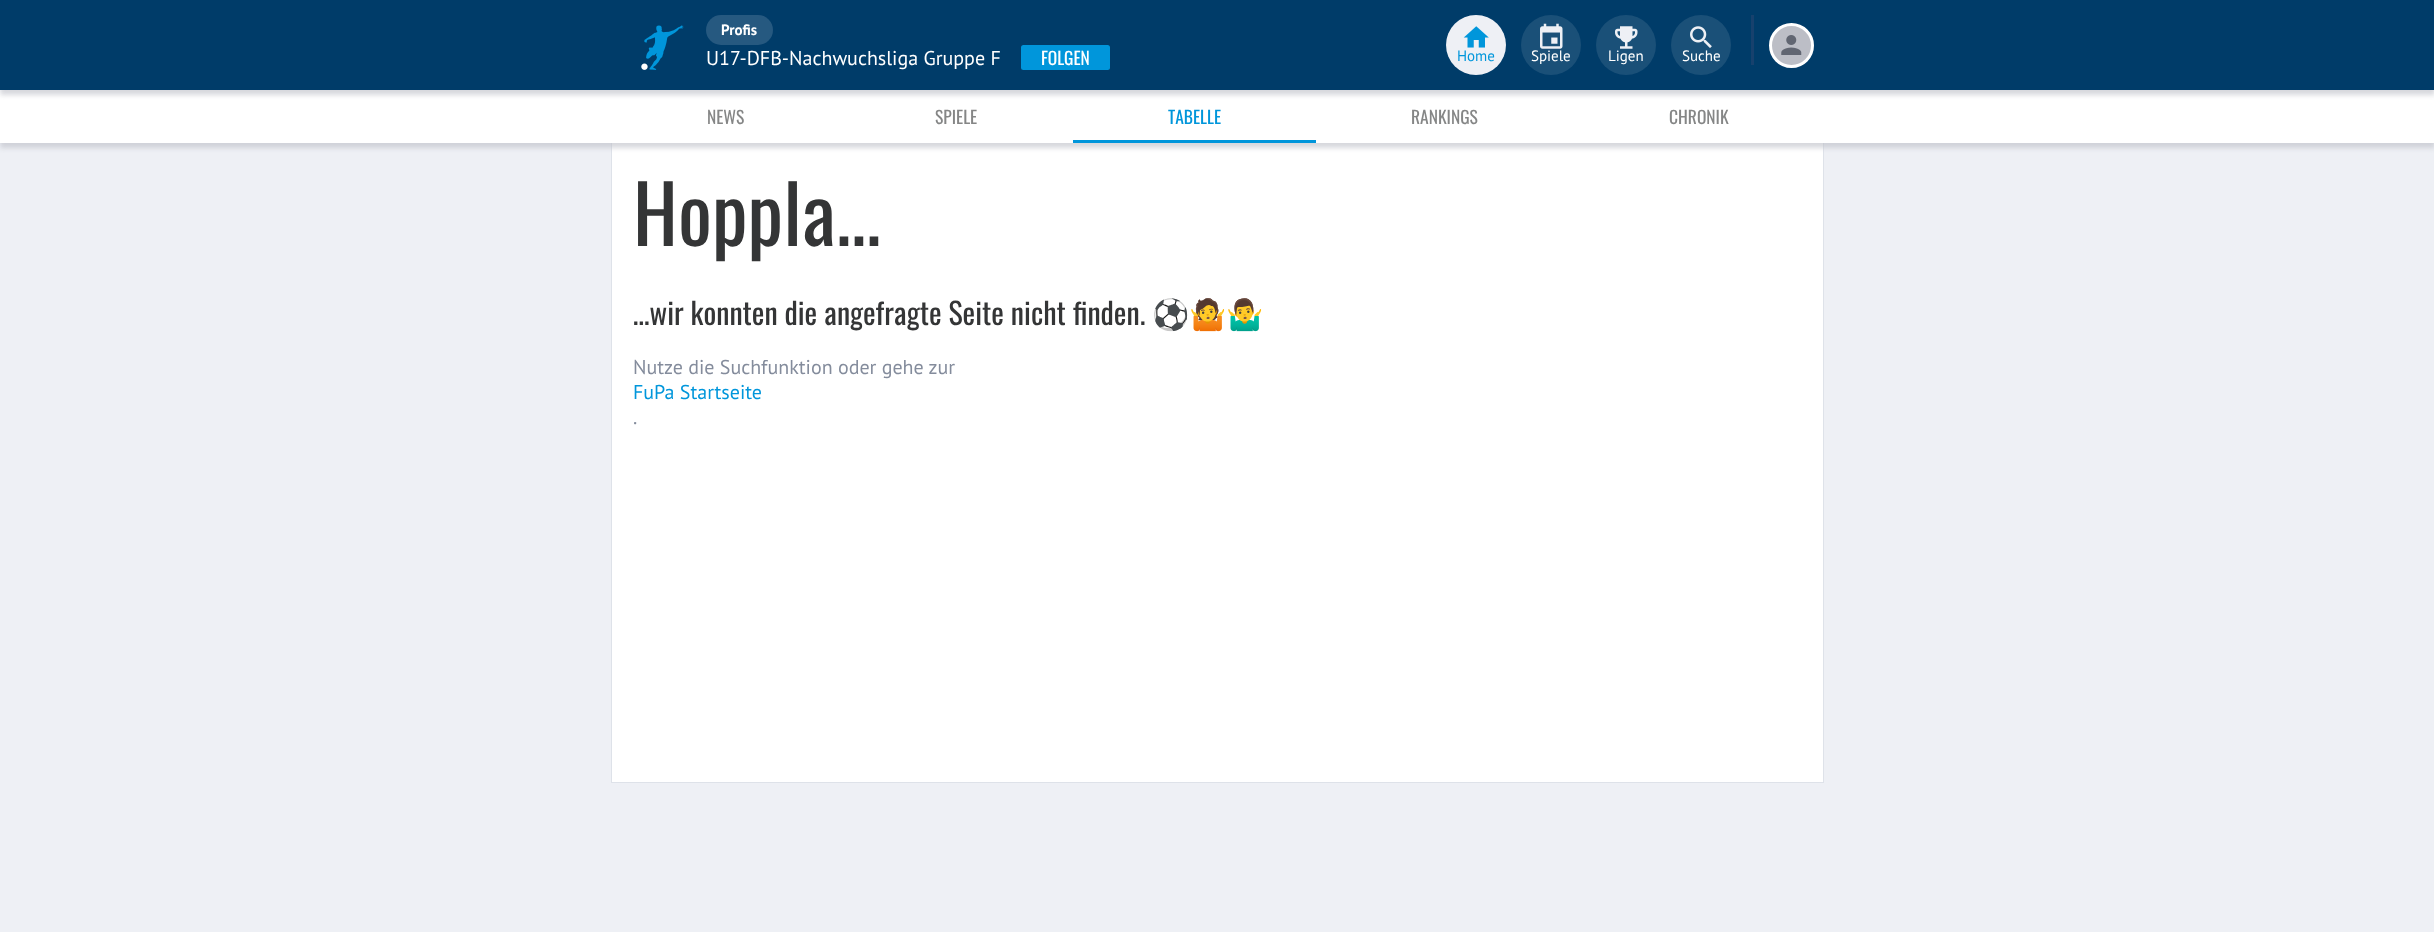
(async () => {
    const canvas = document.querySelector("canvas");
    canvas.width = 2434;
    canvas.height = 932;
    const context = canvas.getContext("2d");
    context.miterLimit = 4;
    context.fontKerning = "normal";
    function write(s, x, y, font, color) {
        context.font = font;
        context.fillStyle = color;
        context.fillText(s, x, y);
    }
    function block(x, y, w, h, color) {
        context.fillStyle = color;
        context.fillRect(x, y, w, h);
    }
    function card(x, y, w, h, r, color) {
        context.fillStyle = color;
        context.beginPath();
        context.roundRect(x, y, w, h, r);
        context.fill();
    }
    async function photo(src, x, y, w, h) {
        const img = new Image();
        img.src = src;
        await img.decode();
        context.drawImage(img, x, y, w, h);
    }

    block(0, 0, 2434, 932, "rgb(238, 240, 245)");
    block(612, 143, 1211, 639, "rgb(255, 255, 255)");
    context.strokeStyle = "rgb(222, 226, 233)";
    context.strokeRect(611.5, 0.5, 1212, 782);
    context.fillStyle = "rgba(188, 190, 198, 0.6)";
    context.filter = "blur(2.5px)";
    context.beginPath();
    context.rect(0, 95, 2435, 53);
    context.fill();
    context.filter = "none";
    block(0, 90, 2434, 53, "rgb(255, 255, 255)");
    context.fillStyle = "rgba(188, 190, 198, 0.6)";
    context.filter = "blur(2.5px)";
    context.beginPath();
    context.rect(0, 5, 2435, 90);
    context.fill();
    context.filter = "none";
    block(0, 0, 2434, 90, "rgb(0, 60, 105)");
    await photo("media/1.png", 641, 25, 43, 45);
    card(706, 15, 67, 30, 15, "rgb(38, 89, 128)");
    write("Profis", 721, 35, "bold 15px PT Sans", "rgb(255, 255, 255)");
    write("U17-DFB-Nachwuchsliga Gruppe F", 706, 65, "20px PT Sans", "rgb(255, 255, 255)");
    card(1021, 45, 89, 25, 2.5, "rgb(0, 150, 219)");
    write("FOLGEN", 1041, 65, "17.5px Oswald", "rgb(255, 255, 255)");
    context.fillStyle = "rgb(238, 240, 245)";
    context.beginPath();
    context.arc(1476, 45, 30, 0, Math.PI * 2);
    context.fill();
    await photo("media/2.png", 1463, 26, 26, 22);
    write("Home", 1457, 61, "15px PT Sans", "rgb(0, 150, 219)");
    context.fillStyle = "rgb(26, 80, 120)";
    context.beginPath();
    context.arc(1551, 45, 30, 0, Math.PI * 2);
    context.fill();
    await photo("media/3.png", 1540, 23, 23, 26);
    write("Spiele", 1531, 61, "15px PT Sans", "rgb(255, 255, 255)");
    context.fillStyle = "rgb(26, 80, 120)";
    context.beginPath();
    context.arc(1626, 45, 30, 0, Math.PI * 2);
    context.fill();
    await photo("media/4.png", 1615, 26, 23, 23);
    write("Ligen", 1608, 61, "15px PT Sans", "rgb(255, 255, 255)");
    context.fillStyle = "rgb(26, 80, 120)";
    context.beginPath();
    context.arc(1701, 45, 30, 0, Math.PI * 2);
    context.fill();
    await photo("media/5.png", 1690, 26, 22, 22);
    write("Suche", 1682, 61, "15px PT Sans", "rgb(255, 255, 255)");
    block(1751, 15, 3, 50, "rgb(23, 65, 109)");
    context.fillStyle = "rgb(188, 190, 198)";
    context.beginPath();
    context.arc(1791.5, 45.5, 21, 0, Math.PI * 2);
    context.fill();
    context.strokeStyle = "rgb(255, 255, 255)";
    context.lineWidth = 3;
    context.stroke();
    await photo("media/6.png", 1781, 35, 21, 20);
    write("NEWS", 707, 124, "17.5px Oswald", "rgb(133, 134, 134)");
    write("SPIELE", 935, 124, "17.5px Oswald", "rgb(133, 134, 134)");
    write("TABELLE", 1168, 124, "17.5px Oswald", "rgb(0, 150, 219)");
    write("RANKINGS", 1411, 124, "17.5px Oswald", "rgb(133, 134, 134)");
    write("CHRONIK", 1669, 124, "17.5px Oswald", "rgb(133, 134, 134)");
    block(1073, 140, 243, 3, "rgb(0, 150, 219)");
    write("Hoppla...‍", 633, 246, "80px Oswald", "rgb(52, 53, 54)");
    write("…wir konnten die angefragte Seite nicht finden.", 633, 325, "30px Oswald", "rgb(52, 53, 54)");
    write("⚽🤷🤷‍♂", 1152, 325, "30px Noto Color Emoji", "rgb(52, 53, 54)");
    write("Nutze die Suchfunktion oder gehe zur", 633, 374, "20px PT Sans", "rgb(132, 140, 156)");
    write("FuPa Startseite️", 633, 399, "20px PT Sans", "rgb(0, 150, 219)");
    write(".", 633, 424, "20px PT Sans", "rgb(132, 140, 156)");
})();
